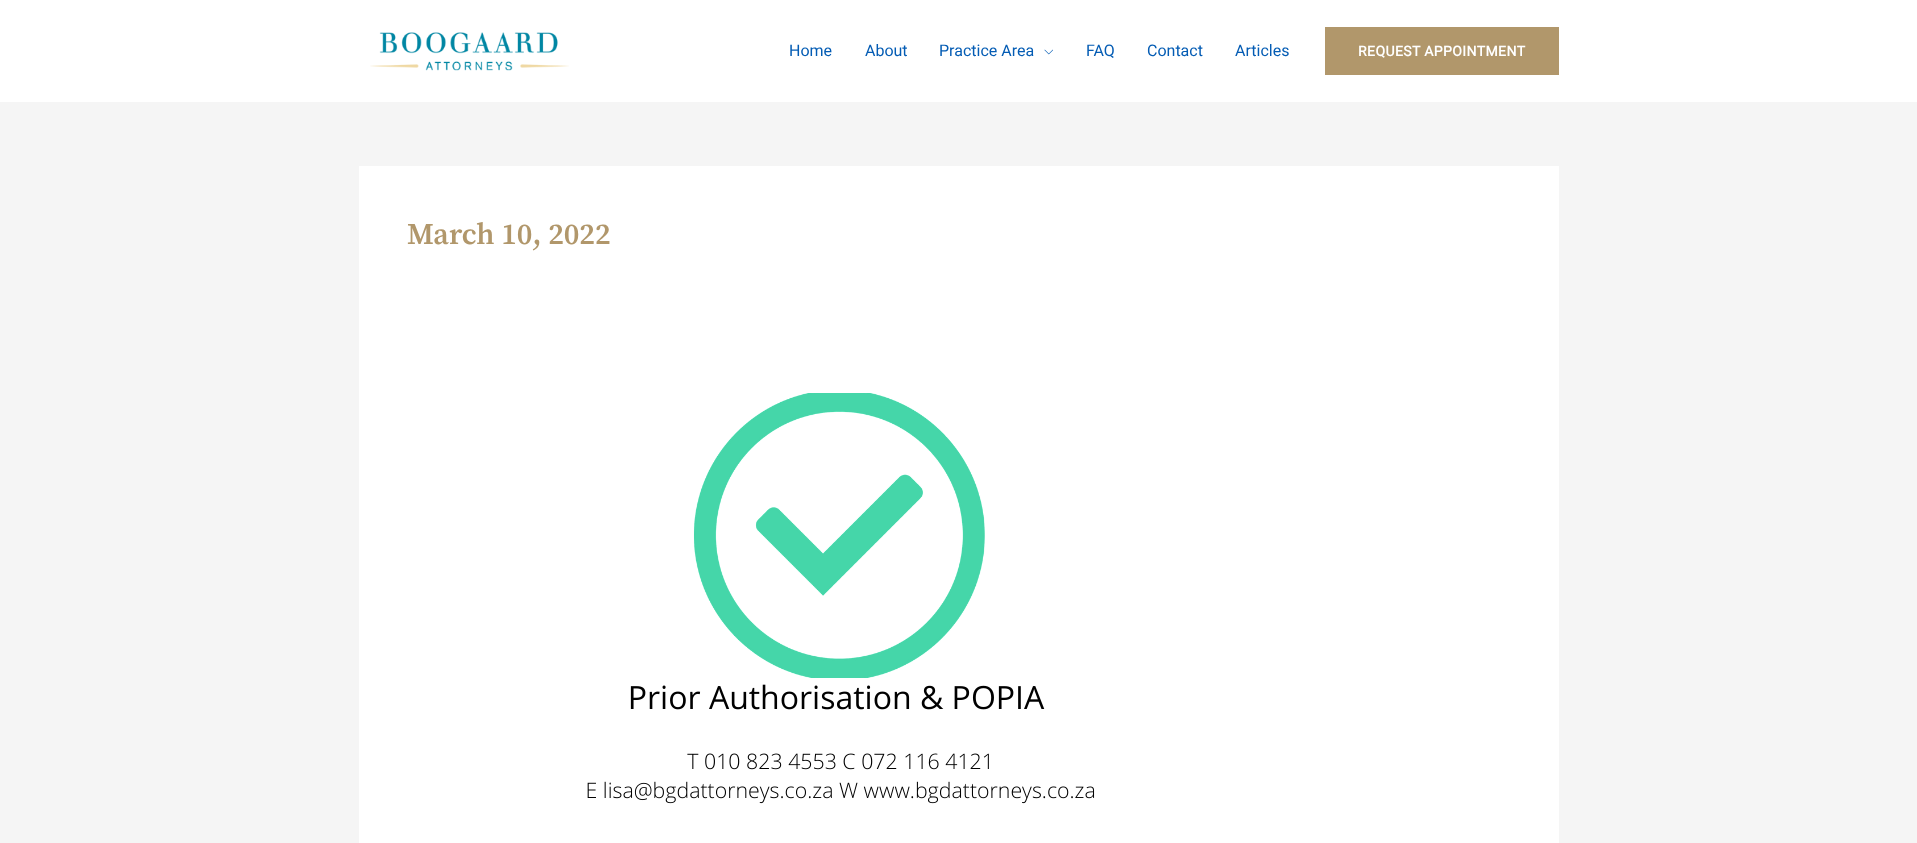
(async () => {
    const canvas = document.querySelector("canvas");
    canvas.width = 1917;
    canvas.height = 843;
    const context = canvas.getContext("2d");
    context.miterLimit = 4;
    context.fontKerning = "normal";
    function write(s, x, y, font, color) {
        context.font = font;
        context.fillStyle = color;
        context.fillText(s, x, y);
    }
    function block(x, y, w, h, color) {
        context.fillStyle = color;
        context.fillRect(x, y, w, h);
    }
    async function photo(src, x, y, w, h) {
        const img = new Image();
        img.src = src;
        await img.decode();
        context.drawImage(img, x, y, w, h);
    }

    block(0, 0, 1917, 843, "rgb(245, 245, 245)");
    block(0, 0, 1917, 102, "rgb(255, 255, 255)");
    await photo("media/1.png", 370, 32, 199, 39);
    write("Home", 789, 56, "16px Roboto", "rgb(4, 92, 180)");
    write("About", 865, 56, "16px Roboto", "rgb(4, 92, 180)");
    write("Practice Area", 939, 56, "16px Roboto", "rgb(4, 92, 180)");
    await photo("media/2.png", 1044, 49, 9, 6);
    write("FAQ", 1086, 56, "16px Roboto", "rgb(4, 92, 180)");
    write("Contact", 1147, 56, "16px Roboto", "rgb(4, 92, 180)");
    write("Articles", 1235, 56, "16px Roboto", "rgb(4, 92, 180)");
    block(1325, 27, 234, 48, "rgb(177, 151, 107)");
    context.letterSpacing = "0.4px";
    write("REQUEST APPOINTMENT", 1358, 56, "bold 14px Roboto", "rgb(255, 255, 255)");
    block(359, 166, 1200, 677, "rgb(255, 255, 255)");
    context.letterSpacing = "0px";
    write("March 10, 2022", 407, 244, "600 30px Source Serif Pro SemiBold", "rgb(177, 151, 107)");
    await photo("media/3.png", 587, 393, 508, 411);
})();
